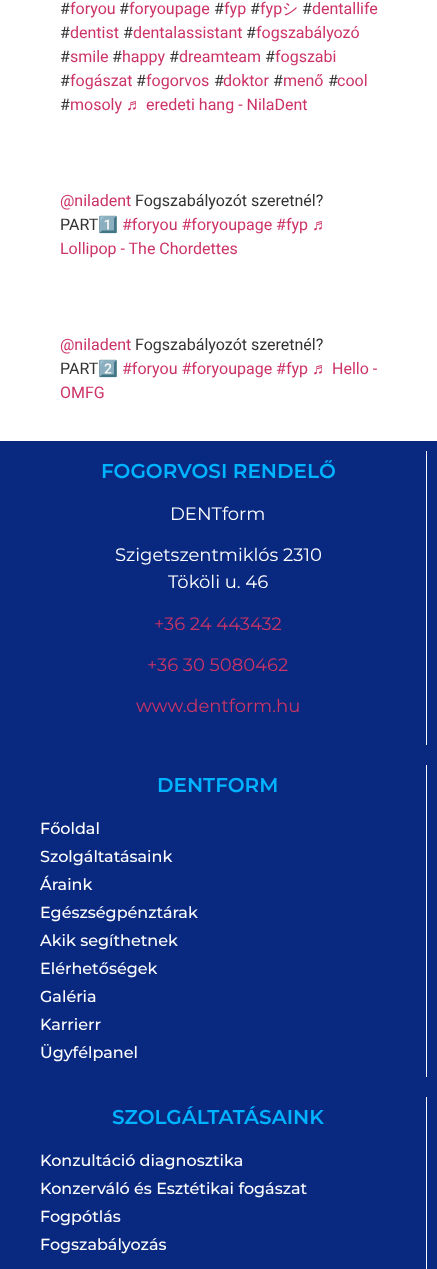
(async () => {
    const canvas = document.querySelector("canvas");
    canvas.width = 437;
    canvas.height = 1269;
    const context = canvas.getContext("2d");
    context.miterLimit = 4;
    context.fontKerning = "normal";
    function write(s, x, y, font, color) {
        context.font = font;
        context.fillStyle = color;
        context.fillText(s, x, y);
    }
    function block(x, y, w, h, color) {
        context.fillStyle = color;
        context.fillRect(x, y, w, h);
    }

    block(0, 0, 437, 1269, "rgb(255, 255, 255)");
    write("#", 60, 14, "16px Roboto", "rgb(51, 51, 51)");
    write("foryou", 70, 14, "16px Roboto", "rgb(204, 51, 102)");
    write("#", 119, 14, "16px Roboto", "rgb(51, 51, 51)");
    write("foryoupage", 129, 14, "16px Roboto", "rgb(204, 51, 102)");
    write("#", 214, 14, "16px Roboto", "rgb(51, 51, 51)");
    write("fyp", 224, 14, "16px Roboto", "rgb(204, 51, 102)");
    write("#", 250, 14, "16px Roboto", "rgb(51, 51, 51)");
    write("fyp", 260, 14, "16px Roboto", "rgb(204, 51, 102)");
    write("シ", 282, 14, "500 16px WenQuanYi Zen Hei", "rgb(204, 51, 102)");
    write("#", 302, 14, "16px Roboto", "rgb(51, 51, 51)");
    write("dentallife", 312, 14, "16px Roboto", "rgb(204, 51, 102)");
    write("#", 60, 38, "16px Roboto", "rgb(51, 51, 51)");
    write("dentist", 70, 38, "16px Roboto", "rgb(204, 51, 102)");
    write("#", 123, 38, "16px Roboto", "rgb(51, 51, 51)");
    write("dentalassistant", 133, 38, "16px Roboto", "rgb(204, 51, 102)");
    write("#", 246, 38, "16px Roboto", "rgb(51, 51, 51)");
    write("fogszabályozó", 256, 38, "16px Roboto", "rgb(204, 51, 102)");
    write("#", 60, 62, "16px Roboto", "rgb(51, 51, 51)");
    write("smile", 70, 62, "16px Roboto", "rgb(204, 51, 102)");
    write("#", 112, 62, "16px Roboto", "rgb(51, 51, 51)");
    write("happy", 122, 62, "16px Roboto", "rgb(204, 51, 102)");
    write("#", 169, 62, "16px Roboto", "rgb(51, 51, 51)");
    write("dreamteam", 179, 62, "16px Roboto", "rgb(204, 51, 102)");
    write("#", 265, 62, "16px Roboto", "rgb(51, 51, 51)");
    write("fogszabi", 275, 62, "16px Roboto", "rgb(204, 51, 102)");
    write("#", 60, 86, "16px Roboto", "rgb(51, 51, 51)");
    write("fogászat", 70, 86, "16px Roboto", "rgb(204, 51, 102)");
    write("#", 136, 86, "16px Roboto", "rgb(51, 51, 51)");
    write("fogorvos", 146, 86, "16px Roboto", "rgb(204, 51, 102)");
    write("#", 214, 86, "16px Roboto", "rgb(51, 51, 51)");
    write("doktor", 223, 86, "16px Roboto", "rgb(204, 51, 102)");
    write("#", 273, 86, "16px Roboto", "rgb(51, 51, 51)");
    write("menő", 283, 86, "16px Roboto", "rgb(204, 51, 102)");
    write("#", 328, 86, "16px Roboto", "rgb(51, 51, 51)");
    write("cool", 337, 86, "16px Roboto", "rgb(204, 51, 102)");
    write("#", 60, 110, "16px Roboto", "rgb(51, 51, 51)");
    write("mosoly", 70, 110, "16px Roboto", "rgb(204, 51, 102)");
    write("♬", 126, 110, "16px Liberation Sans", "rgb(204, 51, 102)");
    write("eredeti hang - NilaDent", 146, 110, "16px Roboto", "rgb(204, 51, 102)");
    write("@niladent", 60, 206, "16px Roboto", "rgb(204, 51, 102)");
    write("Fogszabályozót szeretnél?", 135, 206, "16px Roboto", "rgb(51, 51, 51)");
    write("PART", 60, 230, "16px Roboto", "rgb(51, 51, 51)");
    write("1️⃣", 98, 230, "16px Noto Color Emoji", "rgb(51, 51, 51)");
    write("#foryou #foryoupage #fyp", 122, 230, "16px Roboto", "rgb(204, 51, 102)");
    write("♬", 312, 230, "16px Liberation Sans", "rgb(204, 51, 102)");
    write("Lollipop - The Chordettes", 60, 254, "16px Roboto", "rgb(204, 51, 102)");
    write("@niladent", 60, 350, "16px Roboto", "rgb(204, 51, 102)");
    write("Fogszabályozót szeretnél?", 135, 350, "16px Roboto", "rgb(51, 51, 51)");
    write("PART", 60, 374, "16px Roboto", "rgb(51, 51, 51)");
    write("2️⃣", 98, 374, "16px Noto Color Emoji", "rgb(51, 51, 51)");
    write("#foryou #foryoupage #fyp", 122, 374, "16px Roboto", "rgb(204, 51, 102)");
    write("♬", 312, 374, "16px Liberation Sans", "rgb(204, 51, 102)");
    write("Hello -", 332, 374, "16px Roboto", "rgb(204, 51, 102)");
    write("OMFG", 60, 398, "16px Roboto", "rgb(204, 51, 102)");
    block(0, 441, 437, 828, "rgb(9, 41, 129)");
    block(426, 451, 1, 294, "rgb(255, 255, 255)");
    write("FOGORVOSI RENDELŐ", 101, 478, "600 20px Montserrat", "rgb(0, 179, 255)");
    write("DENTform", 170, 520, "18px Montserrat", "rgb(255, 255, 255)");
    write("Szigetszentmiklós 2310", 115, 561, "18px Montserrat", "rgb(255, 255, 255)");
    write("Tököli u. 46", 168, 588, "18px Montserrat", "rgb(255, 255, 255)");
    write("+36 24 443432", 154, 630, "18px Montserrat", "rgb(204, 51, 102)");
    write("+36 30 5080462", 147, 671, "18px Montserrat", "rgb(204, 51, 102)");
    write("www.dentform.hu", 136, 712, "18px Montserrat", "rgb(204, 51, 102)");
    block(426, 765, 1, 312, "rgb(255, 255, 255)");
    write("DENTFORM", 157, 792, "600 20px Montserrat", "rgb(0, 179, 255)");
    write("Főoldal", 40, 834, "500 16px Montserrat", "rgb(255, 255, 255)");
    write("Szolgáltatásaink", 40, 862, "500 16px Montserrat", "rgb(255, 255, 255)");
    write("Áraink", 40, 890, "500 16px Montserrat", "rgb(255, 255, 255)");
    write("Egészségpénztárak", 40, 918, "500 16px Montserrat", "rgb(255, 255, 255)");
    write("Akik segíthetnek", 40, 946, "500 16px Montserrat", "rgb(255, 255, 255)");
    write("Elérhetőségek", 40, 974, "500 16px Montserrat", "rgb(255, 255, 255)");
    write("Galéria", 40, 1002, "500 16px Montserrat", "rgb(255, 255, 255)");
    write("Karrierr", 40, 1030, "500 16px Montserrat", "rgb(255, 255, 255)");
    write("Ügyfélpanel", 40, 1058, "500 16px Montserrat", "rgb(255, 255, 255)");
    block(426, 1097, 1, 172, "rgb(255, 255, 255)");
    write("SZOLGÁLTATÁSAINK", 112, 1124, "600 20px Montserrat", "rgb(0, 179, 255)");
    write("Konzultáció diagnosztika", 40, 1166, "500 16px Montserrat", "rgb(255, 255, 255)");
    write("Konzerváló és Esztétikai fogászat", 40, 1194, "500 16px Montserrat", "rgb(255, 255, 255)");
    write("Fogpótlás", 40, 1222, "500 16px Montserrat", "rgb(255, 255, 255)");
    write("Fogszabályozás", 40, 1250, "500 16px Montserrat", "rgb(255, 255, 255)");
})();
